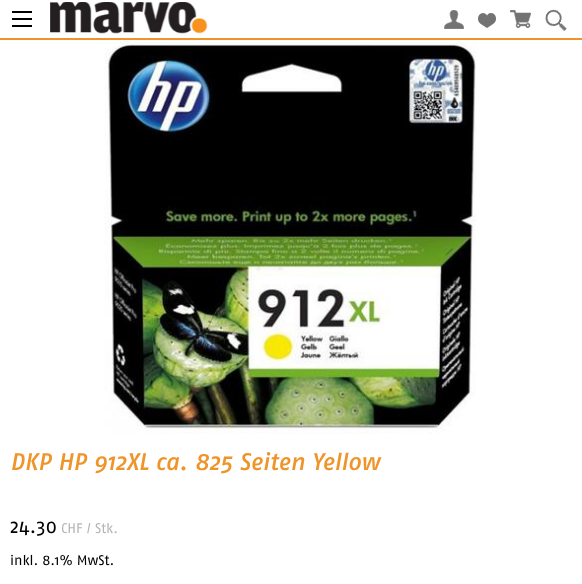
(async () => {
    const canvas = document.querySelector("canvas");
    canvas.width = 582;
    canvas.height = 584;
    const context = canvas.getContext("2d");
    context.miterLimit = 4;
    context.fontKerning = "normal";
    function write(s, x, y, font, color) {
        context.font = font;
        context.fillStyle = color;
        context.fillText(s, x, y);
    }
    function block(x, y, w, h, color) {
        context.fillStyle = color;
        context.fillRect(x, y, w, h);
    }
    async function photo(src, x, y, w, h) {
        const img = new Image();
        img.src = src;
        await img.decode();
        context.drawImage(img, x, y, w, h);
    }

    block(0, 0, 582, 584, "rgb(255, 255, 255)");
    await photo("media/1.png", 50, 2, 158, 32);
    await photo("media/2.png", 545, 9, 22, 22);
    block(0, 38, 582, 2, "rgb(239, 148, 41)");
    await photo("media/3.png", 444, 10, 20, 19);
    await photo("media/4.png", 478, 13, 18, 15);
    await photo("media/5.png", 510, 10, 21, 18);
    await photo("media/6.png", 12, 11, 20, 16);
    await photo("media/7.png", 104, 40, 373, 394);
    write("DKP HP 912XL ca. 825 Seiten Yellow", 10, 470, "italic 500 24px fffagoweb", "rgb(239, 148, 41)");
    write("24.30", 10, 533, "20px fffagoweb", "rgb(0, 0, 0)");
    write("CHF / Stk.", 61, 533, "14px fffagoweb", "rgb(181, 181, 181)");
    write("inkl. 8.1% MwSt.", 10, 565, "14px fffagoweb", "rgb(0, 0, 0)");
})();
